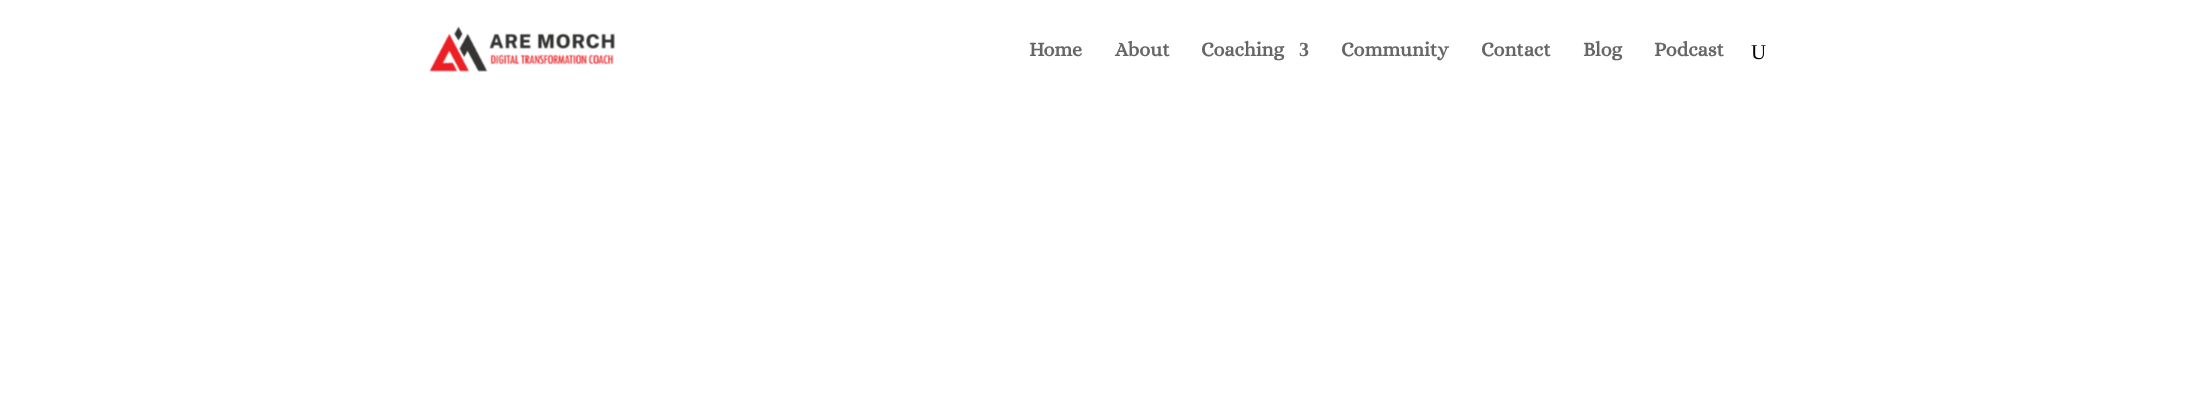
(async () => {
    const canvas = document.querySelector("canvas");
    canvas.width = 2197;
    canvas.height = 404;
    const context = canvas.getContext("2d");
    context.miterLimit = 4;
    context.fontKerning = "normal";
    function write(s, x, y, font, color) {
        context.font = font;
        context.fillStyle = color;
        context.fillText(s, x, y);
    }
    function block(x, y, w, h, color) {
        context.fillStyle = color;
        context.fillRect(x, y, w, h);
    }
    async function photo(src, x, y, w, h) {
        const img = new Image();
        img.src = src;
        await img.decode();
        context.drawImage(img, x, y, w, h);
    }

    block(0, 0, 2197, 404, "rgb(255, 255, 255)");
    await photo("media/1.png", 429, 26, 187, 46);
    write("Home", 1029, 56, "bold 20px Alice", "rgb(102, 102, 102)");
    write("About", 1115, 56, "bold 20px Alice", "rgb(102, 102, 102)");
    write("Coaching", 1201, 56, "bold 20px Alice", "rgb(102, 102, 102)");
    write("3", 1299, 56, "bold 20px Liberation Serif", "rgb(102, 102, 102)");
    write("Community", 1341, 56, "bold 20px Alice", "rgb(102, 102, 102)");
    write("Contact", 1481, 56, "bold 20px Alice", "rgb(102, 102, 102)");
    write("Blog", 1583, 56, "bold 20px Alice", "rgb(102, 102, 102)");
    write("Podcast", 1654, 56, "bold 20px Alice", "rgb(102, 102, 102)");
    write("U", 1751, 59, "21px Liberation Serif", "rgb(0, 0, 0)");
})();
